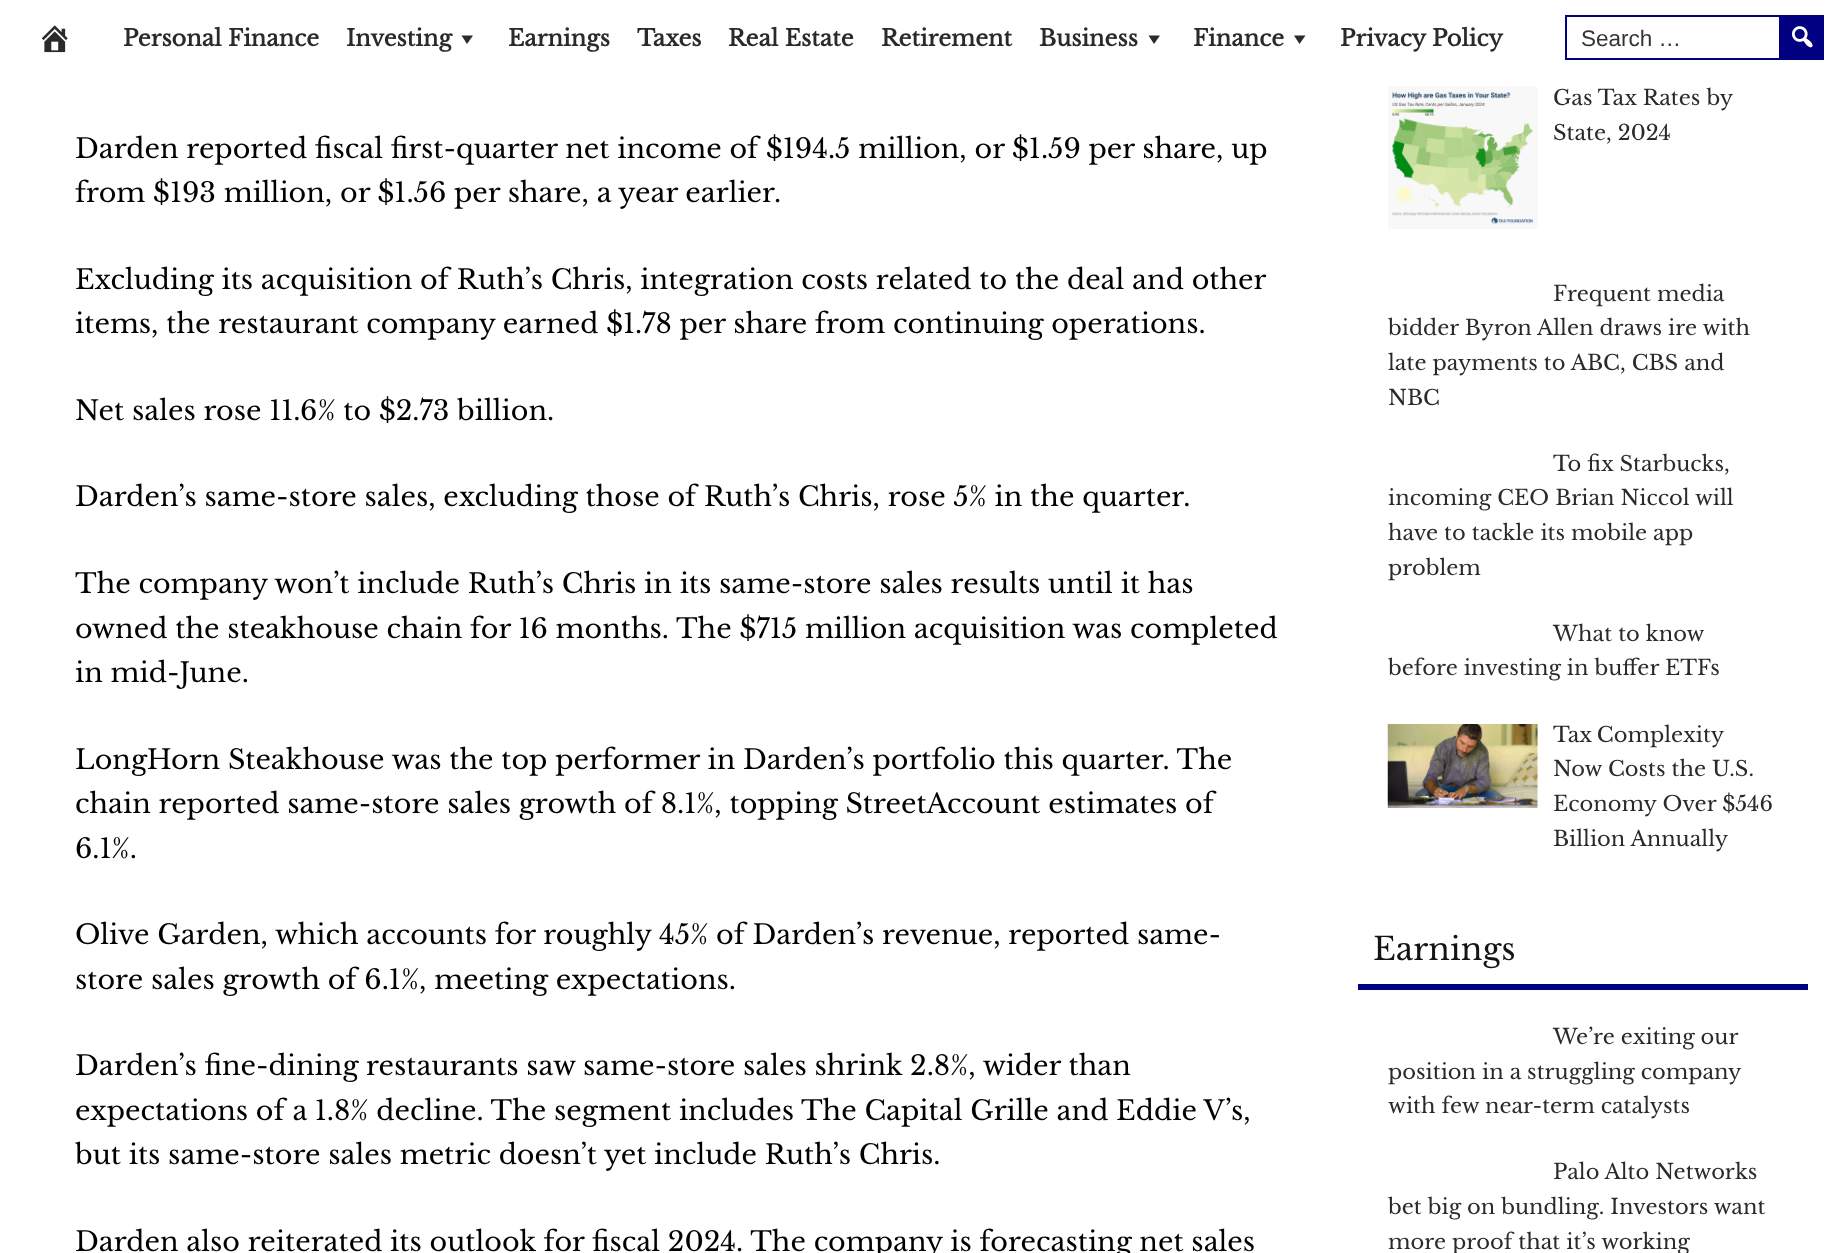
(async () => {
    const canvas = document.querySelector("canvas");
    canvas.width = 1844;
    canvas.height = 1253;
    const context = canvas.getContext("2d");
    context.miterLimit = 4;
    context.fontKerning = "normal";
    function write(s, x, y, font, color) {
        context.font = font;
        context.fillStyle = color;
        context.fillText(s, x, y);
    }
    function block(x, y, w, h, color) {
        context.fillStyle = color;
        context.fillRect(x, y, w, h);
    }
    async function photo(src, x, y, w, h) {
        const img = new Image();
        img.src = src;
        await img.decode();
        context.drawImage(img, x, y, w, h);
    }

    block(0, 0, 1844, 1253, "rgb(255, 255, 255)");
    await photo("media/1.png", 41, 25, 27, 28);
    write("Personal Finance", 123, 46, "bold 22.5px Libre Baskerville", "rgb(42, 42, 42)");
    write("Investing", 346, 46, "bold 22.5px Libre Baskerville", "rgb(42, 42, 42)");
    context.beginPath();
    context.moveTo(473, 35.5);
    context.lineTo(467, 44);
    context.lineTo(461.5, 35.5);
    context.closePath();
    context.fill();
    write("Earnings", 508, 46, "bold 22.5px Libre Baskerville", "rgb(42, 42, 42)");
    write("Taxes", 637, 46, "bold 22.5px Libre Baskerville", "rgb(42, 42, 42)");
    write("Real Estate", 728, 46, "bold 22.5px Libre Baskerville", "rgb(42, 42, 42)");
    write("Retirement", 881, 46, "bold 22.5px Libre Baskerville", "rgb(42, 42, 42)");
    write("Business", 1039, 46, "bold 22.5px Libre Baskerville", "rgb(42, 42, 42)");
    context.beginPath();
    context.moveTo(1160, 35.5);
    context.lineTo(1154, 44);
    context.lineTo(1148.5, 35.5);
    context.closePath();
    context.fill();
    write("Finance", 1193, 46, "bold 22.5px Libre Baskerville", "rgb(42, 42, 42)");
    context.beginPath();
    context.moveTo(1305.5, 35.5);
    context.lineTo(1299.5, 44);
    context.lineTo(1294, 35.5);
    context.closePath();
    context.fill();
    write("Privacy Policy", 1340, 46, "bold 22.5px Libre Baskerville", "rgb(42, 42, 42)");
    context.strokeStyle = "rgb(0, 0, 128)";
    context.lineWidth = 2;
    context.strokeRect(1566, 16, 254, 43);
    write("Search …", 1581, 46, "22.5px Liberation Sans", "rgb(51, 51, 51)");
    block(1779, 15, 45, 45, "rgb(0, 0, 128)");
    await photo("media/2.png", 1792, 26, 21, 22);
    write("Darden reported fiscal first-quarter net income of $194.5 million, or $1.59 per share, up", 75, 158, "27px Libre Baskerville", "rgb(0, 0, 0)");
    write("from $193 million, or $1.56 per share, a year earlier.", 75, 202, "27px Libre Baskerville", "rgb(0, 0, 0)");
    write("Excluding its acquisition of Ruth’s Chris, integration costs related to the deal and other", 75, 289, "27px Libre Baskerville", "rgb(0, 0, 0)");
    write("items, the restaurant company earned $1.78 per share from continuing operations.", 75, 333, "27px Libre Baskerville", "rgb(0, 0, 0)");
    write("Net sales rose 11.6% to $2.73 billion.", 75, 420, "27px Libre Baskerville", "rgb(0, 0, 0)");
    write("Darden’s same-store sales, excluding those of Ruth’s Chris, rose 5% in the quarter.", 75, 506, "27px Libre Baskerville", "rgb(0, 0, 0)");
    write("The company won’t include Ruth’s Chris in its same-store sales results until it has", 75, 593, "27px Libre Baskerville", "rgb(0, 0, 0)");
    write("owned the steakhouse chain for 16 months. The $715 million acquisition was completed", 75, 638, "27px Libre Baskerville", "rgb(0, 0, 0)");
    write("in mid-June.", 75, 682, "27px Libre Baskerville", "rgb(0, 0, 0)");
    write("LongHorn Steakhouse was the top performer in Darden’s portfolio this quarter. The", 75, 769, "27px Libre Baskerville", "rgb(0, 0, 0)");
    write("chain reported same-store sales growth of 8.1%, topping StreetAccount estimates of", 75, 813, "27px Libre Baskerville", "rgb(0, 0, 0)");
    write("6.1%.", 75, 858, "27px Libre Baskerville", "rgb(0, 0, 0)");
    write("Olive Garden, which accounts for roughly 45% of Darden’s revenue, reported same-", 75, 944, "27px Libre Baskerville", "rgb(0, 0, 0)");
    write("store sales growth of 6.1%, meeting expectations.", 75, 989, "27px Libre Baskerville", "rgb(0, 0, 0)");
    write("Darden’s fine-dining restaurants saw same-store sales shrink 2.8%, wider than", 75, 1075, "27px Libre Baskerville", "rgb(0, 0, 0)");
    write("expectations of a 1.8% decline. The segment includes The Capital Grille and Eddie V’s,", 75, 1120, "27px Libre Baskerville", "rgb(0, 0, 0)");
    write("but its same-store sales metric doesn’t yet include Ruth’s Chris.", 75, 1164, "27px Libre Baskerville", "rgb(0, 0, 0)");
    write("Darden also reiterated its outlook for fiscal 2024. The company is forecasting net sales", 75, 1251, "27px Libre Baskerville", "rgb(0, 0, 0)");
    await photo("media/3.png", 1388, 86, 150, 143);
    write("Gas Tax Rates by", 1553, 105, "21px Libre Baskerville", "rgb(42, 42, 42)");
    write("State, 2024", 1553, 140, "21px Libre Baskerville", "rgb(42, 42, 42)");
    write("Frequent media", 1553, 301, "21px Libre Baskerville", "rgb(42, 42, 42)");
    write("bidder Byron Allen draws ire with", 1388, 335, "21px Libre Baskerville", "rgb(42, 42, 42)");
    write("late payments to ABC, CBS and", 1388, 370, "21px Libre Baskerville", "rgb(42, 42, 42)");
    write("NBC", 1388, 405, "21px Libre Baskerville", "rgb(42, 42, 42)");
    write("To fix Starbucks,", 1553, 471, "21px Libre Baskerville", "rgb(42, 42, 42)");
    write("incoming CEO Brian Niccol will", 1388, 505, "21px Libre Baskerville", "rgb(42, 42, 42)");
    write("have to tackle its mobile app", 1388, 540, "21px Libre Baskerville", "rgb(42, 42, 42)");
    write("problem", 1388, 575, "21px Libre Baskerville", "rgb(42, 42, 42)");
    write("What to know", 1553, 641, "21px Libre Baskerville", "rgb(42, 42, 42)");
    write("before investing in buffer ETFs", 1388, 675, "21px Libre Baskerville", "rgb(42, 42, 42)");
    await photo("media/4.png", 1387, 724, 151, 84);
    context.wordSpacing = "-1px";
    write("Tax Complexity", 1553, 742, "21px Libre Baskerville", "rgb(42, 42, 42)");
    context.wordSpacing = "0px";
    write("Now Costs the U.S.", 1553, 776, "21px Libre Baskerville", "rgb(42, 42, 42)");
    write("Economy Over $546", 1553, 811, "21px Libre Baskerville", "rgb(42, 42, 42)");
    write("Billion Annually", 1553, 846, "21px Libre Baskerville", "rgb(42, 42, 42)");
    block(1358, 984, 450, 6, "rgb(0, 0, 128)");
    write("Earnings", 1373, 960, "31.5px Libre Baskerville", "rgb(20, 20, 20)");
    write("We’re exiting our", 1553, 1044, "21px Libre Baskerville", "rgb(42, 42, 42)");
    write("position in a struggling company", 1388, 1079, "21px Libre Baskerville", "rgb(42, 42, 42)");
    write("with few near-term catalysts", 1388, 1113, "21px Libre Baskerville", "rgb(42, 42, 42)");
    write("Palo Alto Networks", 1553, 1179, "21px Libre Baskerville", "rgb(42, 42, 42)");
    write("bet big on bundling. Investors want", 1388, 1214, "21px Libre Baskerville", "rgb(42, 42, 42)");
    write("more proof that it’s working", 1388, 1249, "21px Libre Baskerville", "rgb(42, 42, 42)");
})();
